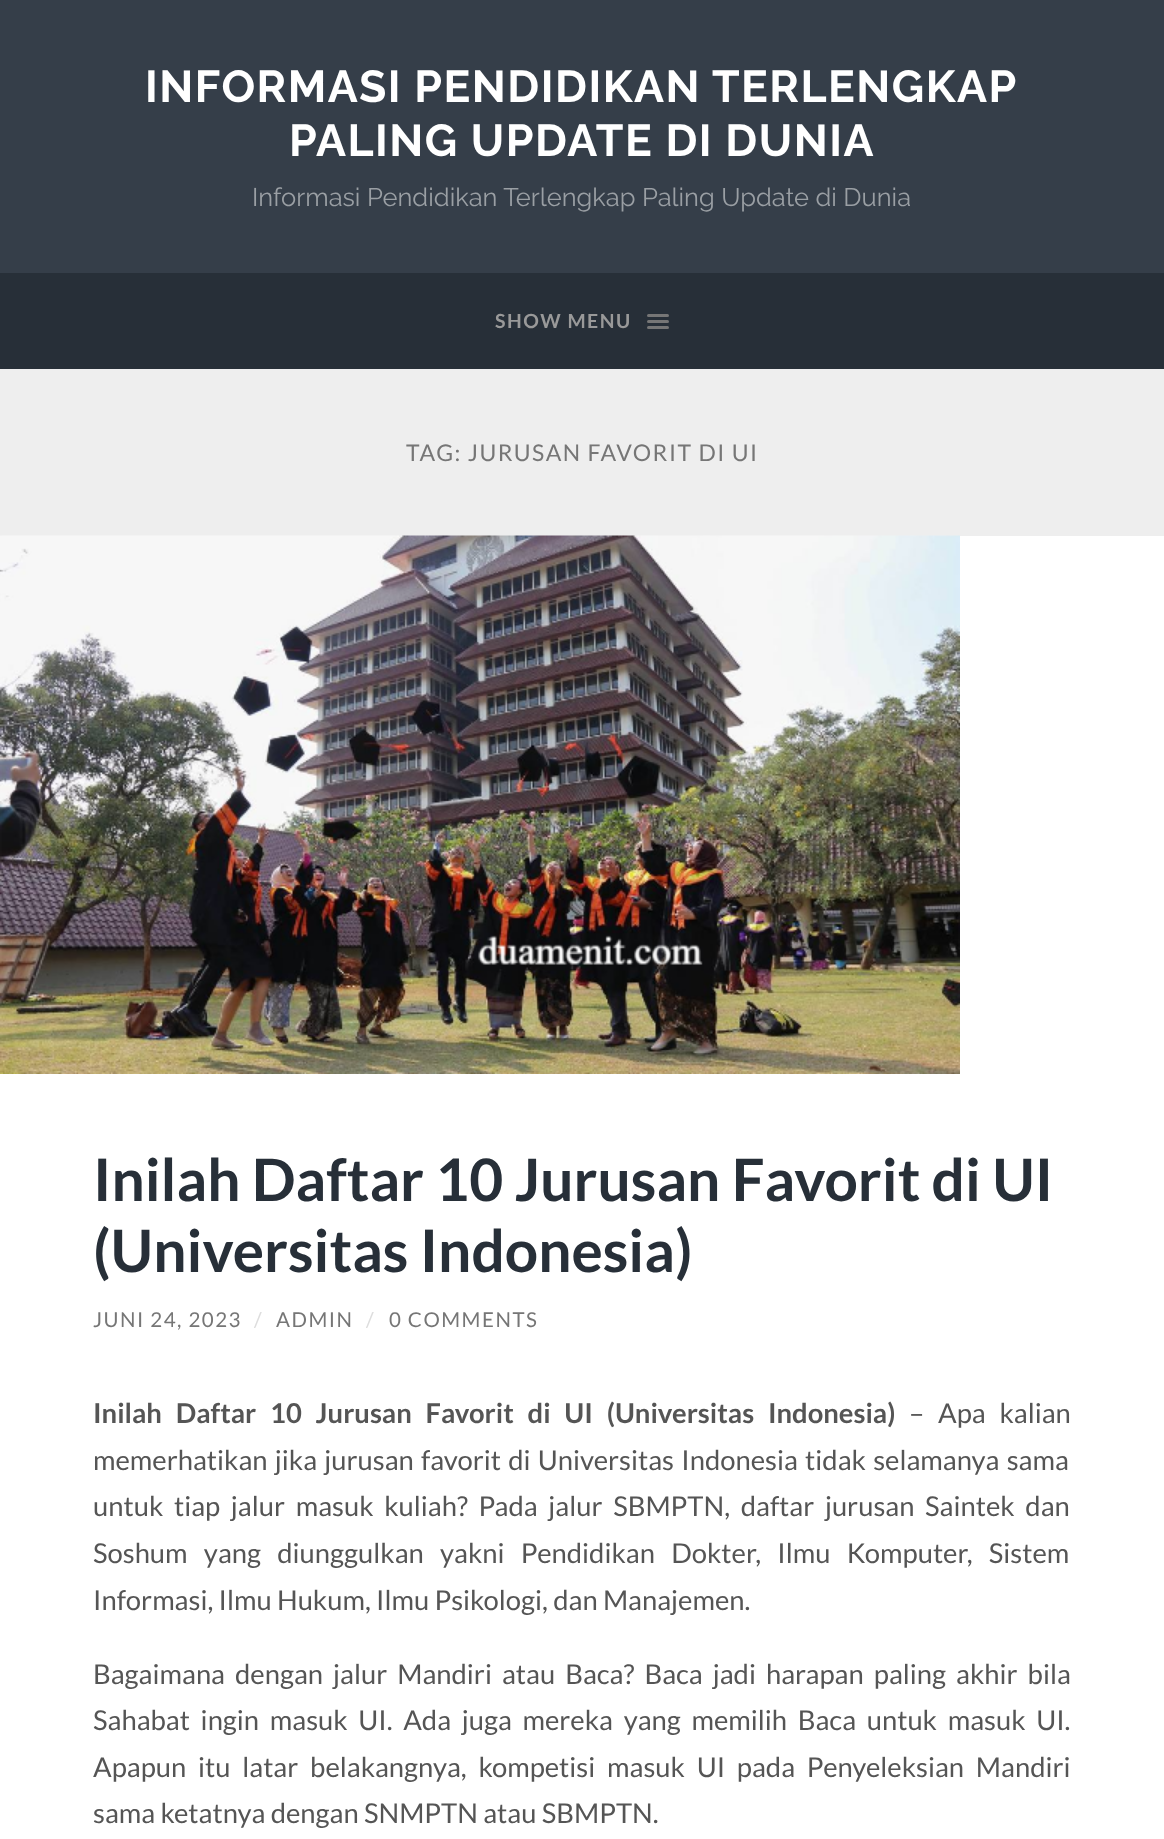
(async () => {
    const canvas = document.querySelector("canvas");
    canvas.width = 1164;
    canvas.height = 1839;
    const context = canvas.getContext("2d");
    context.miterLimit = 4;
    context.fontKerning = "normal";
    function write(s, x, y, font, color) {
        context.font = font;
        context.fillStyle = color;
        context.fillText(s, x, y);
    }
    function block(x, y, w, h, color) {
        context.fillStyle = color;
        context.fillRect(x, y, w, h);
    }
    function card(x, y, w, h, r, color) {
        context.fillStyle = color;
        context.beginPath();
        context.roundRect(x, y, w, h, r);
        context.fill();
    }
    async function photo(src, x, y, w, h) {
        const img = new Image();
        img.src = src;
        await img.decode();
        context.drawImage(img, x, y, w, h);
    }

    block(0, 0, 1164, 1839, "rgb(255, 255, 255)");
    block(0, 0, 1164, 273, "rgb(53, 62, 73)");
    context.letterSpacing = "1.5px";
    write("INFORMASI PENDIDIKAN TERLENGKAP", 145, 102, "100 44.6px Raleway", "rgb(255, 255, 255)");
    write("PALING UPDATE DI DUNIA", 289, 156, "100 44.6px Raleway", "rgb(255, 255, 255)");
    context.letterSpacing = "0px";
    write("Informasi Pendidikan Terlengkap Paling Update di Dunia", 252, 206, "100 25.5px 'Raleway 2'", "rgb(154, 159, 164)");
    block(0, 273, 1164, 96, "rgb(39, 47, 56)");
    context.letterSpacing = "1.5px";
    write("SHOW MENU", 495, 328, "bold 19.5px Lato", "rgb(153, 153, 153)");
    card(647, 314, 22, 3, 1.5, "rgb(118, 118, 118)");
    card(647, 320, 22, 3, 1.5, "rgb(118, 118, 118)");
    card(647, 326, 22, 3, 1.5, "rgb(118, 118, 118)");
    block(0, 369, 1164, 167, "rgb(238, 238, 238)");
    write("TAG: JURUSAN FAVORIT DI UI", 406, 461, "23px Lato", "rgb(118, 118, 118)");
    await photo("media/1.png", 0, 535, 960, 539);
    context.letterSpacing = "0px";
    write("Inilah Daftar 10 Jurusan Favorit di UI", 93, 1201, "bold 58.6px Lato", "rgb(39, 47, 56)");
    write("(Universitas Indonesia)", 93, 1272, "bold 58.6px Lato", "rgb(39, 47, 56)");
    context.letterSpacing = "1.5px";
    write("JUNI 24, 2023", 93, 1327, "20.5px Lato", "rgb(118, 118, 118)");
    write("/", 254, 1327, "20.5px Lato", "rgb(221, 221, 221)");
    write("ADMIN", 276, 1327, "20.5px Lato", "rgb(118, 118, 118)");
    write("/", 366, 1327, "20.5px Lato", "rgb(221, 221, 221)");
    write("0 COMMENTS", 389, 1327, "20.5px Lato", "rgb(118, 118, 118)");
    context.letterSpacing = "0px";
    context.wordSpacing = "8.5px";
    write("Inilah Daftar 10 Jurusan Favorit di UI (Universitas Indonesia)", 93, 1423, "bold 27.4px Lato", "rgb(85, 85, 85)");
    write("– Apa kalian", 909, 1423, "27.4px Lato", "rgb(85, 85, 85)");
    context.wordSpacing = "2px";
    write("memerhatikan jika jurusan favorit di Universitas Indonesia tidak selamanya sama", 93, 1470, "27.4px Lato", "rgb(85, 85, 85)");
    context.wordSpacing = "5.4px";
    write("untuk tiap jalur masuk kuliah? Pada jalur SBMPTN, daftar jurusan Saintek dan", 93, 1516, "27.4px Lato", "rgb(85, 85, 85)");
    context.wordSpacing = "11px";
    write("Soshum yang diunggulkan yakni Pendidikan Dokter, Ilmu Komputer, Sistem", 93, 1563, "27.4px Lato", "rgb(85, 85, 85)");
    context.wordSpacing = "0px";
    write("Informasi, Ilmu Hukum, Ilmu Psikologi, dan Manajemen.", 93, 1610, "27.4px Lato", "rgb(85, 85, 85)");
    context.wordSpacing = "4.75px";
    write("Bagaimana dengan jalur Mandiri atau Baca? Baca jadi harapan paling akhir bila", 93, 1684, "27.4px Lato", "rgb(85, 85, 85)");
    context.wordSpacing = "5.4px";
    write("Sahabat ingin masuk UI. Ada juga mereka yang memilih Baca untuk masuk UI.", 93, 1730, "27.4px Lato", "rgb(85, 85, 85)");
    context.wordSpacing = "6.5px";
    write("Apapun itu latar belakangnya, kompetisi masuk UI pada Penyeleksian Mandiri", 93, 1777, "27.4px Lato", "rgb(85, 85, 85)");
    context.wordSpacing = "0px";
    write("sama ketatnya dengan SNMPTN atau SBMPTN.", 93, 1823, "27.4px Lato", "rgb(85, 85, 85)");
})();
